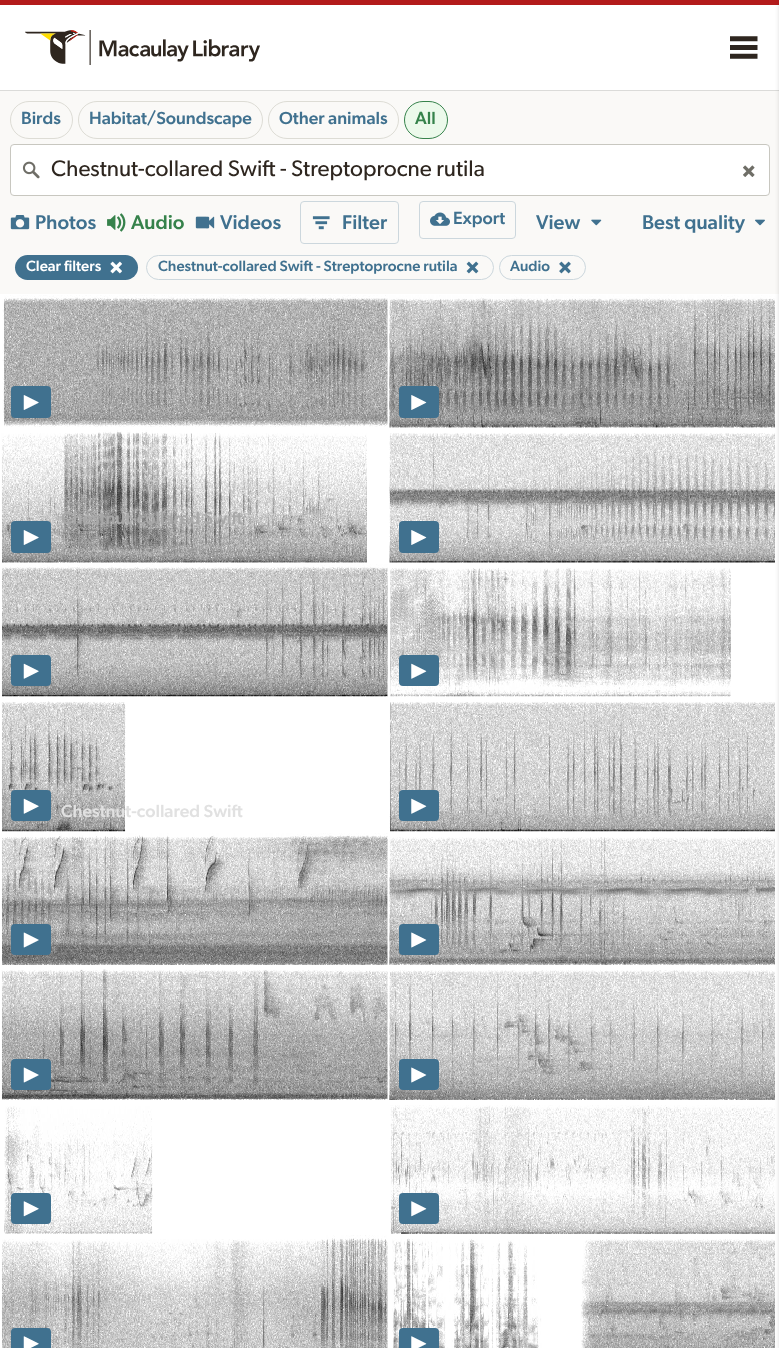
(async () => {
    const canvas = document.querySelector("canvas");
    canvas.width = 779;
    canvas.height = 1348;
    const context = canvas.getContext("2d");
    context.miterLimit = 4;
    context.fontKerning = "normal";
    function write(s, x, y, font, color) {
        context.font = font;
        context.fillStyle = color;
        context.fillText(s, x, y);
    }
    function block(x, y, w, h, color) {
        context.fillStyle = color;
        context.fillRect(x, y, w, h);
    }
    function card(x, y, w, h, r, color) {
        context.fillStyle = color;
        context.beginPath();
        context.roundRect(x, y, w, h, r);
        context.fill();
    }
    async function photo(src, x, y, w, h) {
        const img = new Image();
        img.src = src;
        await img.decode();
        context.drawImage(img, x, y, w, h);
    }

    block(0, 0, 779, 1348, "rgb(255, 255, 255)");
    block(0, 0, 779, 5, "rgb(179, 27, 27)");
    block(0, 90, 779, 1, "rgb(219, 219, 217)");
    await photo("media/1.png", 25, 30, 235, 35);
    await photo("media/2.png", 730, 36, 28, 23);
    block(0, 91, 779, 203, "rgb(250, 249, 247)");
    await photo("media/17.png", 389, 295, 386, 133);
    await photo("media/20.png", 389, 433, 386, 130);
    await photo("media/26.png", 389, 701, 386, 131);
    await photo("media/29.png", 389, 837, 386, 128);
    await photo("media/32.png", 389, 970, 386, 130);
    await photo("media/35.png", 390, 1105, 385, 129);
    await photo("media/39.png", 392, 1238, 383, 110);
    context.fillStyle = "rgba(0, 0, 0, 0.2)";
    context.filter = "blur(2.5px)";
    context.beginPath();
    context.rect(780, 3, 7, 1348);
    context.fill();
    context.filter = "none";
    context.beginPath();
    context.roundRect(10.5, 101.5, 62, 37, 18.5);
    context.strokeStyle = "rgb(221, 220, 213)";
    context.stroke();
    write("Birds", 21, 124, "500 17.6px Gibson", "rgb(64, 113, 143)");
    context.beginPath();
    context.roundRect(78.5, 101.5, 184, 37, 18.5);
    context.stroke();
    write("Habitat/Soundscape", 89, 124, "500 17.6px Gibson", "rgb(64, 113, 143)");
    context.beginPath();
    context.roundRect(268.5, 101.5, 130, 37, 18.5);
    context.stroke();
    write("Other animals", 279, 124, "500 17.6px Gibson", "rgb(64, 113, 143)");
    context.fillStyle = "rgb(236, 249, 235)";
    context.beginPath();
    context.roundRect(404.5, 101.5, 43, 37, 18.5);
    context.fill();
    context.strokeStyle = "rgb(54, 130, 75)";
    context.stroke();
    write("All", 415, 124, "500 17.6px Gibson", "rgb(54, 130, 75)");
    context.fillStyle = "rgb(255, 255, 255)";
    context.beginPath();
    context.roundRect(10.5, 144.5, 759, 51, 3.5);
    context.fill();
    context.strokeStyle = "rgb(200, 199, 192)";
    context.stroke();
    await photo("media/3.png", 22, 161, 18, 18);
    write("Chestnut-collared Swift - Streptoprocne rutila", 51, 176, "22.6px Gibson", "rgb(46, 38, 31)");
    await photo("media/4.png", 743, 165, 12, 12);
    await photo("media/5.png", 10, 215, 20, 15);
    write("Photos", 35, 229, "500 20px Gibson", "rgb(64, 113, 143)");
    await photo("media/6.png", 107, 213, 19, 19);
    write("Audio", 131, 229, "500 20px Gibson", "rgb(54, 130, 75)");
    await photo("media/7.png", 195, 216, 20, 13);
    write("Videos", 220, 229, "500 20px Gibson", "rgb(64, 113, 143)");
    context.beginPath();
    context.roundRect(300.5, 201.5, 98, 42, 3.5);
    context.strokeStyle = "rgb(204, 215, 221)";
    context.stroke();
    await photo("media/8.png", 312, 216, 18, 14);
    write("Filter", 342, 229, "500 20px Gibson", "rgb(64, 113, 143)");
    context.beginPath();
    context.roundRect(419.5, 201.5, 96, 37, 3.5);
    context.stroke();
    await photo("media/9.png", 430, 212, 20, 14);
    write("Export", 453, 224, "500 17.6px Gibson", "rgb(64, 113, 143)");
    write("View", 536, 229, "500 20px Gibson", "rgb(64, 113, 143)");
    await photo("media/10.png", 591, 219, 11, 7);
    write("Best quality", 642, 229, "500 20px Gibson", "rgb(64, 113, 143)");
    await photo("media/11.png", 755, 219, 10, 7);
    card(15, 255, 123, 25, 12.5, "rgb(64, 113, 143)");
    write("Clear filters", 26, 271, "500 15px Gibson", "rgb(255, 255, 255)");
    await photo("media/12.png", 110, 261, 12, 13);
    context.beginPath();
    context.roundRect(146.5, 255.5, 347, 24, 12);
    context.stroke();
    write("Chestnut-collared Swift - Streptoprocne rutila", 158, 271, "500 15px Gibson", "rgb(64, 113, 143)");
    await photo("media/13.png", 466, 261, 13, 13);
    context.beginPath();
    context.roundRect(499.5, 255.5, 86, 24, 12);
    context.stroke();
    write("Audio", 510, 271, "500 15px Gibson", "rgb(64, 113, 143)");
    await photo("media/14.png", 559, 261, 12, 13);
    await photo("media/15.png", 2, 295, 386, 132);
    card(11, 386, 40, 32, 4, "rgb(64, 113, 143)");
    await photo("media/16.png", 23, 395, 16, 15);
    card(399, 386, 40, 32, 4, "rgb(64, 113, 143)");
    await photo("media/18.png", 411, 395, 16, 15);
    await photo("media/19.png", 1, 430, 366, 133);
    write("Chestnut-collared Swift", 61, 524, "500 17.6px Gibson", "rgb(168, 168, 168)");
    card(11, 521, 40, 32, 4, "rgb(64, 113, 143)");
    await photo("media/16.png", 23, 530, 16, 15);
    card(399, 521, 40, 32, 4, "rgb(64, 113, 143)");
    await photo("media/18.png", 411, 530, 16, 15);
    await photo("media/21.png", 1, 564, 387, 133);
    card(11, 655, 40, 31, 4, "rgb(64, 113, 143)");
    await photo("media/22.png", 23, 663, 16, 16);
    await photo("media/23.png", 390, 567, 341, 130);
    card(399, 655, 40, 31, 4, "rgb(64, 113, 143)");
    await photo("media/24.png", 411, 663, 16, 16);
    await photo("media/25.png", 1, 701, 125, 131);
    card(11, 790, 40, 31, 4, "rgb(64, 113, 143)");
    await photo("media/22.png", 23, 798, 16, 16);
    write("Chestnut-collared Swift", 61, 817, "500 17.6px Gibson", "rgb(225, 225, 225)");
    card(399, 790, 40, 31, 4, "rgb(64, 113, 143)");
    await photo("media/24.png", 411, 798, 16, 16);
    await photo("media/27.png", 1, 833, 387, 132);
    card(11, 924, 40, 31, 4, "rgb(64, 113, 143)");
    await photo("media/28.png", 23, 932, 16, 16);
    card(399, 924, 40, 31, 4, "rgb(64, 113, 143)");
    await photo("media/30.png", 411, 932, 16, 16);
    await photo("media/31.png", 1, 969, 387, 131);
    card(11, 1059, 40, 31, 4, "rgb(64, 113, 143)");
    await photo("media/28.png", 23, 1067, 16, 16);
    card(399, 1059, 40, 31, 4, "rgb(64, 113, 143)");
    await photo("media/30.png", 411, 1067, 16, 16);
    await photo("media/33.png", 4, 1106, 149, 128);
    card(11, 1193, 40, 31, 4, "rgb(64, 113, 143)");
    await photo("media/34.png", 23, 1201, 16, 16);
    card(399, 1193, 40, 31, 4, "rgb(64, 113, 143)");
    await photo("media/36.png", 411, 1201, 16, 16);
    await photo("media/37.png", 1, 1235, 387, 113);
    card(11, 1328, 40, 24, 4, "rgb(64, 113, 143)");
    await photo("media/38.png", 23, 1336, 16, 12);
    card(399, 1328, 40, 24, 4, "rgb(64, 113, 143)");
    await photo("media/40.png", 411, 1336, 16, 12);
})();
